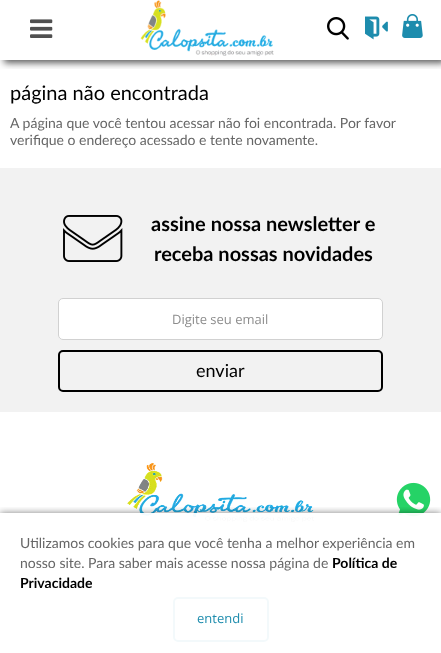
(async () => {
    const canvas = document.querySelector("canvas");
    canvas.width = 441;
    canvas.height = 653;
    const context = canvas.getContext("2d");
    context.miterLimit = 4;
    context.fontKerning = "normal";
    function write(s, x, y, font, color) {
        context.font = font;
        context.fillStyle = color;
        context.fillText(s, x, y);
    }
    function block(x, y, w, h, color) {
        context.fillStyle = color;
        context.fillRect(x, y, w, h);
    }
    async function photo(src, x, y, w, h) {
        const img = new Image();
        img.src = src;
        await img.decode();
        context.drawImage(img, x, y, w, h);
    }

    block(0, 0, 441, 653, "rgb(255, 255, 255)");
    context.save();
    context.beginPath();
    context.rect(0, 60, 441, 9);
    context.clip();
    context.fillStyle = "rgba(0, 0, 0, 0.64)";
    context.filter = "blur(3.5px)";
    context.beginPath();
    context.rect(4, 3, 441, 60);
    context.fill();
    context.filter = "none";
    context.restore();
    await photo("media/1.png", 327, 17, 22, 23);
    await photo("media/2.png", 365, 16, 23, 24);
    await photo("media/3.png", 402, 14, 21, 24);
    await photo("media/4.png", 30, 19, 23, 19);
    await photo("media/5.png", 140, 0, 134, 56);
    write("página não encontrada", 10, 100, "20px Lato", "rgb(0, 0, 0)");
    write("A página que você tentou acessar não foi encontrada. Por favor", 10, 128, "14px Lato", "rgb(102, 102, 102)");
    write("verifique o endereço acessado e tente novamente.", 10, 145, "14px Lato", "rgb(102, 102, 102)");
    block(0, 168, 441, 244, "rgb(242, 242, 242)");
    await photo("media/6.png", 63, 215, 60, 47);
    write("assine nossa newsletter e", 151, 231, "bold 20px Lato", "rgb(0, 0, 0)");
    write("receba nossas novidades", 154, 261, "bold 20px Lato", "rgb(0, 0, 0)");
    context.fillStyle = "rgb(255, 255, 255)";
    context.beginPath();
    context.roundRect(58.5, 298.5, 324, 41, 4.5);
    context.fill();
    context.strokeStyle = "rgb(209, 209, 209)";
    context.stroke();
    write("Digite seu email", 172, 324, "13px Open Sans", "rgb(141, 141, 141)");
    context.beginPath();
    context.roundRect(59, 351, 323, 40, 4);
    context.strokeStyle = "rgb(0, 0, 0)";
    context.lineWidth = 2;
    context.stroke();
    write("enviar", 196, 377, "18px Lato", "rgb(0, 0, 0)");
    await photo("media/7.png", 127, 463, 188, 59);
    context.beginPath();
    context.roundRect(174, 598, 94, 43, 4);
    context.strokeStyle = "rgb(29, 140, 173)";
    context.stroke();
    await photo("media/8.png", 396, 482, 35, 35);
    context.save();
    context.beginPath();
    context.rect(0, 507, 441, 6);
    context.clip();
    context.fillStyle = "rgba(0, 0, 0, 0.5)";
    context.filter = "blur(3.5px)";
    context.beginPath();
    context.rect(0, 513, 441, 140);
    context.fill();
    context.filter = "none";
    context.restore();
    block(140, 513, 284, 129, "rgba(255, 255, 255, 0.95)");
    write("Utilizamos cookies para que você tenha a melhor experiência em", 20, 548, "14px Lato", "rgb(102, 102, 102)");
    write("nosso site. Para saber mais acesse nossa página de", 20, 568, "14px Lato", "rgb(102, 102, 102)");
    write("Política de", 332, 568, "bold 14px Lato", "rgb(0, 0, 0)");
    write("Privacidade", 20, 588, "bold 14px Lato", "rgb(0, 0, 0)");
    write("entendi", 197, 623, "13px Open Sans", "rgb(29, 140, 173)");
})();
